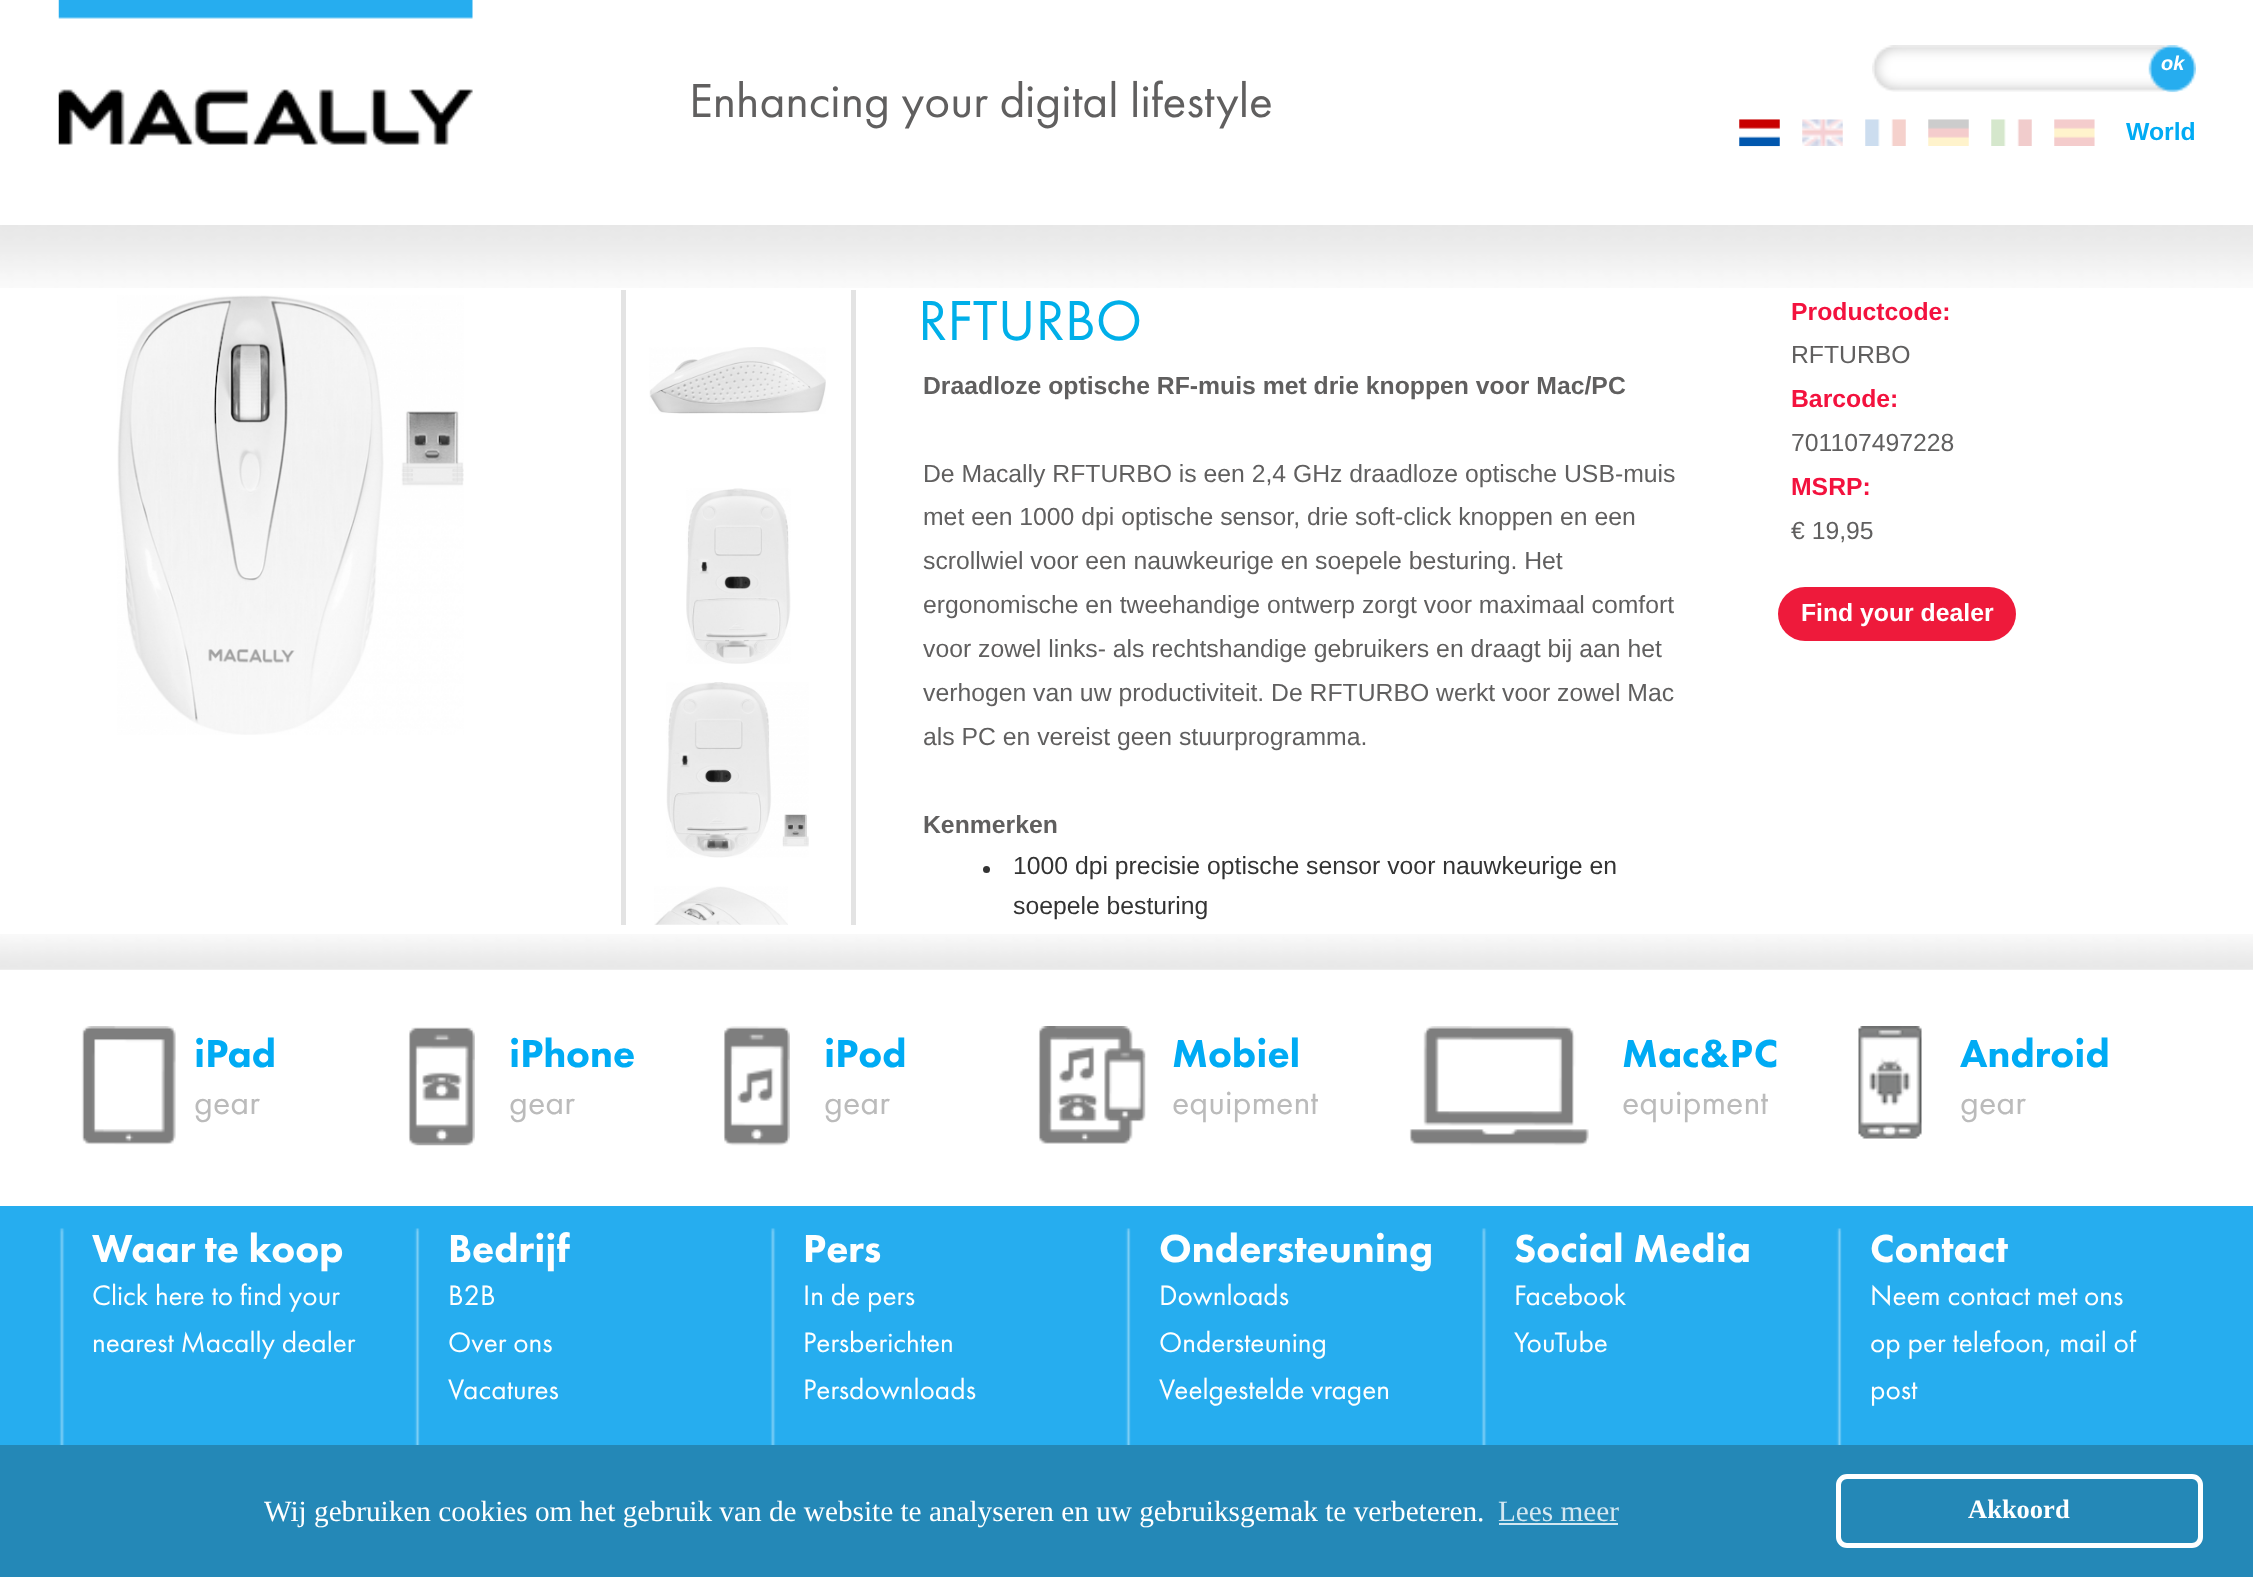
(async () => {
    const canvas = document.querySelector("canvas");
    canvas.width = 2253;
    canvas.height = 1577;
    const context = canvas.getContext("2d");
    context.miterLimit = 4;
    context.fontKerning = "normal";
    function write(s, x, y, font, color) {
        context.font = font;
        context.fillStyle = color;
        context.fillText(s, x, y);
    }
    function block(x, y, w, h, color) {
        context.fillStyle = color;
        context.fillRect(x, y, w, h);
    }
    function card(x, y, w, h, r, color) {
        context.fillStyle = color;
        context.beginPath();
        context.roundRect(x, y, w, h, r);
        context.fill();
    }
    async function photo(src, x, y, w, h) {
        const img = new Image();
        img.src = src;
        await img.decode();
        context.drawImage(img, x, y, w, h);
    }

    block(0, 0, 2253, 1577, "rgb(255, 255, 255)");
    await photo("media/1.png", 0, 225, 2253, 63);
    await photo("media/2.png", 58, 0, 415, 145);
    write("Enhancing your digital lifestyle", 689, 117, "49.5px Futura PT", "rgb(96, 95, 95)");
    await photo("media/3.png", 1872, 45, 302, 47);
    await photo("media/4.png", 2148, 45, 48, 48);
    write("ok", 2161, 70, "italic bold 20px Liberation Sans", "rgb(255, 255, 255)");
    await photo("media/5.png", 1739, 119, 41, 28);
    await photo("media/6.png", 1802, 119, 41, 27);
    await photo("media/7.png", 1865, 119, 41, 27);
    await photo("media/8.png", 1928, 119, 41, 27);
    await photo("media/9.png", 1991, 119, 41, 27);
    await photo("media/10.png", 2054, 119, 41, 27);
    write("World", 2126, 140, "bold 24.75px Liberation Sans", "rgb(0, 171, 244)");
    await photo("media/11.png", 0, 934, 2253, 36);
    write("RFTURBO", 918, 340, "58.5px Futura PT", "rgb(0, 175, 233)");
    await photo("media/12.png", 117, 295, 347, 440);
    block(851, 290, 5, 635, "rgb(227, 227, 227)");
    block(621, 290, 5, 635, "rgb(227, 227, 227)");
    await photo("media/13.png", 649, 347, 177, 67);
    await photo("media/14.png", 686, 488, 105, 176);
    await photo("media/15.png", 666, 682, 143, 176);
    await photo("media/16.png", 654, 886, 134, 39);
    write("Draadloze optische RF-muis met drie knoppen voor Mac/PC", 923, 394, "bold 24.75px Liberation Sans", "rgb(96, 95, 95)");
    write("De Macally RFTURBO is een 2,4 GHz draadloze optische USB-muis", 923, 482, "24.75px Liberation Sans", "rgb(96, 95, 95)");
    write("met een 1000 dpi optische sensor, drie soft-click knoppen en een", 923, 525, "24.75px Liberation Sans", "rgb(96, 95, 95)");
    write("scrollwiel voor een nauwkeurige en soepele besturing. Het", 923, 569, "24.75px Liberation Sans", "rgb(96, 95, 95)");
    write("ergonomische en tweehandige ontwerp zorgt voor maximaal comfort", 923, 613, "24.75px Liberation Sans", "rgb(96, 95, 95)");
    write("voor zowel links- als rechtshandige gebruikers en draagt bij aan het", 923, 657, "24.75px Liberation Sans", "rgb(96, 95, 95)");
    write("verhogen van uw productiviteit. De RFTURBO werkt voor zowel Mac", 923, 701, "24.75px Liberation Sans", "rgb(96, 95, 95)");
    write("als PC en vereist geen stuurprogramma.", 923, 745, "24.75px Liberation Sans", "rgb(96, 95, 95)");
    write("Kenmerken", 923, 833, "bold 24.75px Liberation Sans", "rgb(96, 95, 95)");
    context.fillStyle = "rgb(51, 51, 51)";
    context.beginPath();
    context.arc(986.5, 869.5, 3.5, 0, Math.PI * 2);
    context.fill();
    write("1000 dpi precisie optische sensor voor nauwkeurige en", 1013, 874, "24.75px Liberation Sans", "rgb(51, 51, 51)");
    write("soepele besturing", 1013, 914, "24.75px Liberation Sans", "rgb(51, 51, 51)");
    write("Productcode:", 1791, 320, "bold 24.75px Liberation Sans", "rgb(243, 18, 62)");
    write("RFTURBO", 1791, 363, "24.75px Liberation Sans", "rgb(96, 95, 95)");
    write("Barcode:", 1791, 407, "bold 24.75px Liberation Sans", "rgb(243, 18, 62)");
    write("701107497228", 1791, 451, "24.75px Liberation Sans", "rgb(96, 95, 95)");
    write("MSRP:", 1791, 495, "bold 24.75px Liberation Sans", "rgb(243, 18, 62)");
    write("€ 19,95", 1791, 539, "24.75px Liberation Sans", "rgb(96, 95, 95)");
    card(1778, 587, 238, 54, 27, "rgb(238, 26, 59)");
    write("Find your dealer", 1801, 621, "bold 24.75px Liberation Sans", "rgb(255, 255, 255)");
    await photo("media/17.png", 81, 1026, 95, 119);
    write("iPad", 194, 1067, "900 40.5px Futura PT", "rgb(0, 171, 244)");
    write("gear", 194, 1114, "36px Futura PT", "rgb(187, 187, 187)");
    await photo("media/18.png", 408, 1027, 67, 119);
    write("iPhone", 509, 1067, "900 40.5px Futura PT", "rgb(0, 171, 244)");
    write("gear", 509, 1114, "36px Futura PT", "rgb(187, 187, 187)");
    await photo("media/19.png", 723, 1026, 67, 120);
    write("iPod", 824, 1067, "900 40.5px Futura PT", "rgb(0, 171, 244)");
    write("gear", 824, 1114, "36px Futura PT", "rgb(187, 187, 187)");
    await photo("media/20.png", 1038, 1026, 108, 118);
    write("Mobiel", 1172, 1067, "900 40.5px Futura PT", "rgb(0, 171, 244)");
    write("equipment", 1172, 1114, "36px Futura PT", "rgb(187, 187, 187)");
    await photo("media/21.png", 1409, 1026, 180, 120);
    write("Mac&PC", 1622, 1067, "900 40.5px Futura PT", "rgb(0, 171, 244)");
    write("equipment", 1622, 1114, "36px Futura PT", "rgb(187, 187, 187)");
    await photo("media/22.png", 1858, 1026, 64, 113);
    write("Android", 1960, 1067, "900 40.5px Futura PT", "rgb(0, 171, 244)");
    write("gear", 1960, 1114, "36px Futura PT", "rgb(187, 187, 187)");
    await photo("media/23.png", 0, 1206, 2253, 239);
    await photo("media/24.png", 59, 1228, 6, 217);
    write("Waar te koop", 92, 1262, "900 40.5px Futura PT", "rgb(255, 255, 255)");
    write("Click here to find your", 92, 1305, "29.25px Futura PT", "rgb(255, 255, 255)");
    write("nearest Macally dealer", 92, 1352, "29.25px Futura PT", "rgb(255, 255, 255)");
    await photo("media/25.png", 414, 1228, 6, 217);
    write("Bedrijf", 448, 1262, "900 40.5px Futura PT", "rgb(255, 255, 255)");
    write("B2B", 448, 1305, "29.25px Futura PT", "rgb(255, 255, 255)");
    write("Over ons", 448, 1352, "29.25px Futura PT", "rgb(255, 255, 255)");
    write("Vacatures", 448, 1399, "29.25px Futura PT", "rgb(255, 255, 255)");
    await photo("media/24.png", 770, 1228, 6, 217);
    write("Pers", 803, 1262, "900 40.5px Futura PT", "rgb(255, 255, 255)");
    write("In de pers", 803, 1305, "29.25px Futura PT", "rgb(255, 255, 255)");
    write("Persberichten", 803, 1352, "29.25px Futura PT", "rgb(255, 255, 255)");
    write("Persdownloads", 803, 1399, "29.25px Futura PT", "rgb(255, 255, 255)");
    await photo("media/25.png", 1125, 1228, 6, 217);
    write("Ondersteuning", 1159, 1262, "900 40.5px Futura PT", "rgb(255, 255, 255)");
    write("Downloads", 1159, 1305, "29.25px Futura PT", "rgb(255, 255, 255)");
    write("Ondersteuning", 1159, 1352, "29.25px Futura PT", "rgb(255, 255, 255)");
    write("Veelgestelde vragen", 1159, 1399, "29.25px Futura PT", "rgb(255, 255, 255)");
    await photo("media/24.png", 1481, 1228, 6, 217);
    write("Social Media", 1514, 1262, "900 40.5px Futura PT", "rgb(255, 255, 255)");
    write("Facebook", 1514, 1305, "29.25px Futura PT", "rgb(255, 255, 255)");
    write("YouTube", 1514, 1352, "29.25px Futura PT", "rgb(255, 255, 255)");
    await photo("media/25.png", 1836, 1228, 6, 217);
    write("Contact", 1870, 1262, "900 40.5px Futura PT", "rgb(255, 255, 255)");
    write("Neem contact met ons", 1870, 1305, "29.25px Futura PT", "rgb(255, 255, 255)");
    write("op per telefoon, mail of", 1870, 1352, "29.25px Futura PT", "rgb(255, 255, 255)");
    write("post", 1870, 1399, "29.25px Futura PT", "rgb(255, 255, 255)");
    block(0, 1445, 2253, 132, "rgb(36, 136, 183)");
    write("Wij gebruiken cookies om het gebruik van de website te analyseren en uw gebruiksgemak te verbeteren.", 264, 1521, "29.25px Liberation Serif", "rgb(255, 255, 255)");
    write("Lees meer", 1498, 1521, "29.25px Liberation Serif", "rgb(211, 231, 241)");
    block(1499, 1523, 119, 2, "rgb(211, 231, 241)");
    context.beginPath();
    context.roundRect(1838.5, 1476.5, 362, 69, 8.5);
    context.strokeStyle = "rgb(255, 255, 255)";
    context.lineWidth = 5;
    context.stroke();
    write("Akkoord", 1968, 1518, "bold 26.5px Liberation Serif", "rgb(255, 255, 255)");
})();
